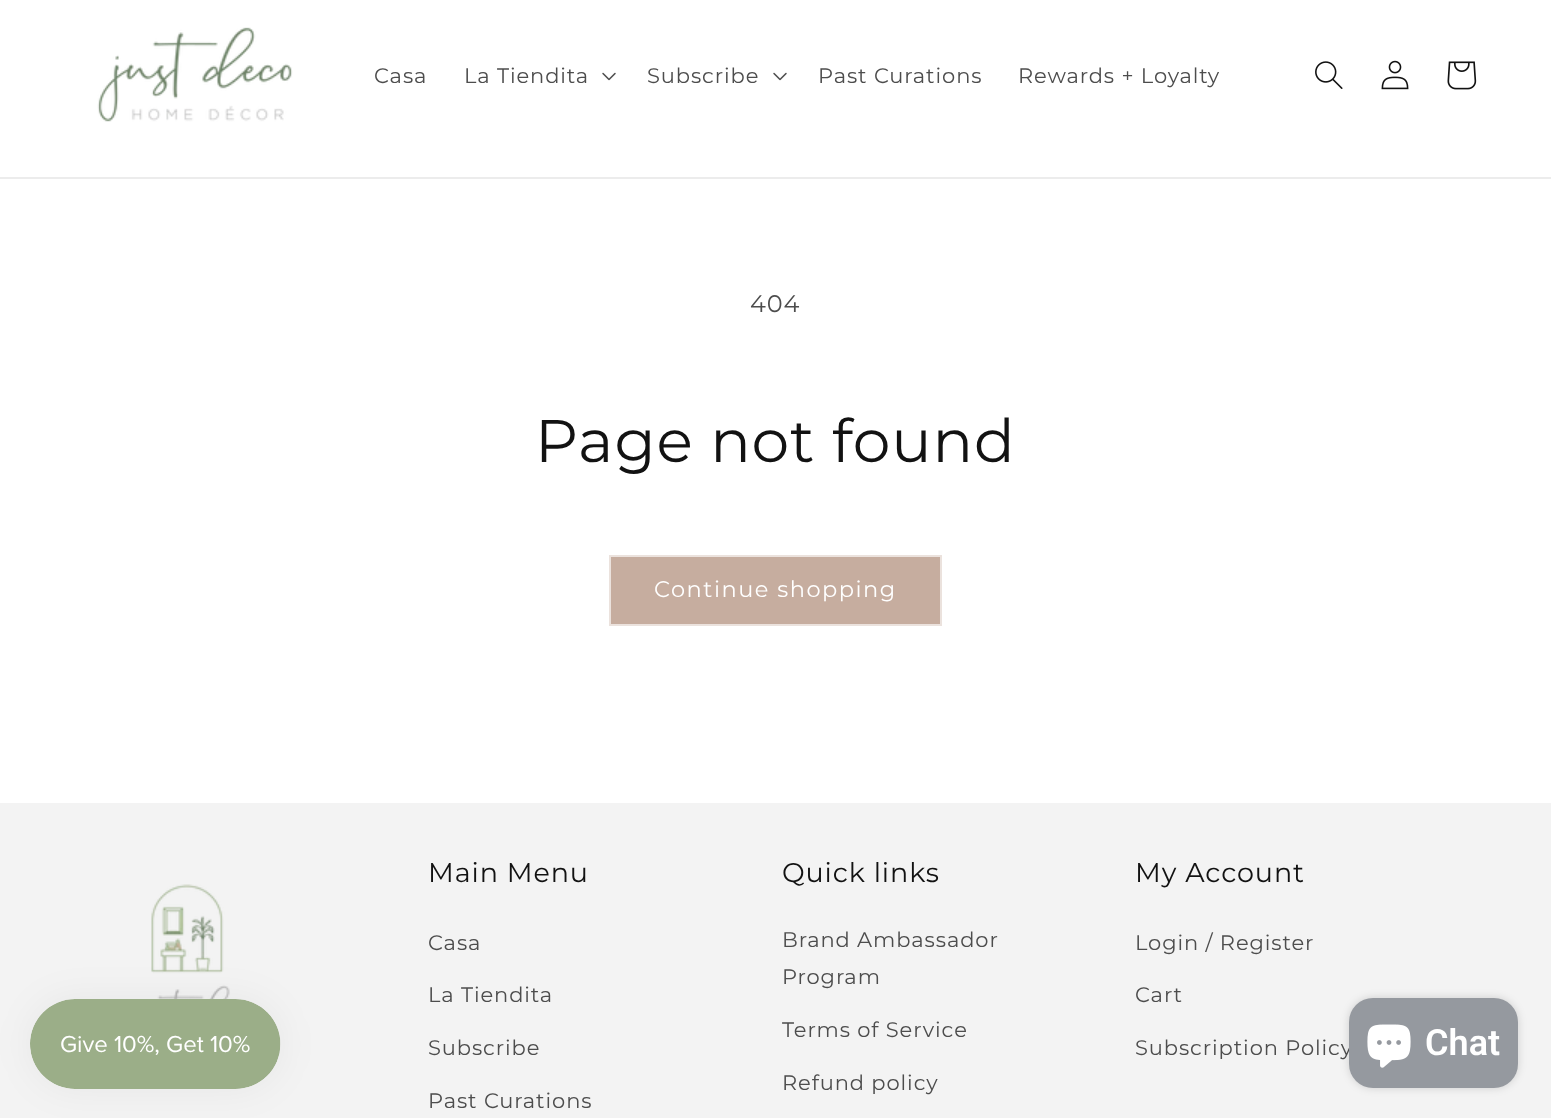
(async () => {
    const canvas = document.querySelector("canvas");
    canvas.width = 1551;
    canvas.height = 1118;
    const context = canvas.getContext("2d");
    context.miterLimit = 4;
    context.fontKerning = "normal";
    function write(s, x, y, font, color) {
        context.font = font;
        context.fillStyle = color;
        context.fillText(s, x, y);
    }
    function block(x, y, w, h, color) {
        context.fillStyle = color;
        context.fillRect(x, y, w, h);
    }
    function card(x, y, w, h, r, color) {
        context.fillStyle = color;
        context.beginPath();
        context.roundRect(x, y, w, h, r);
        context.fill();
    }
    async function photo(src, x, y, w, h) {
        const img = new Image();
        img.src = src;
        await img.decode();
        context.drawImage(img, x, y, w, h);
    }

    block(0, 0, 1551, 1118, "rgb(255, 255, 255)");
    block(0, 177, 1551, 2, "rgb(236, 236, 236)");
    await photo("media/1.png", 97, 27, 196, 95);
    context.letterSpacing = "0.9px";
    write("Casa", 374, 83, "100 21px Montserrat", "rgb(77, 77, 77)");
    write("La Tiendita", 464, 83, "100 21px Montserrat", "rgb(77, 77, 77)");
    await photo("media/2.png", 602, 72, 14, 9);
    write("Subscribe", 647, 83, "100 21px Montserrat", "rgb(77, 77, 77)");
    await photo("media/2.png", 773, 72, 14, 9);
    write("Past Curations", 818, 83, "100 21px Montserrat", "rgb(77, 77, 77)");
    write("Rewards + Loyalty", 1018, 83, "100 21px Montserrat", "rgb(77, 77, 77)");
    await photo("media/3.png", 1315, 61, 28, 28);
    await photo("media/4.png", 1381, 60, 28, 30);
    await photo("media/5.png", 1447, 61, 30, 29);
    write("404", 750, 312, "100 24px Montserrat", "rgb(77, 77, 77)");
    write("Page not found", 535, 462, "100 60px Montserrat", "rgb(18, 18, 18)");
    block(611, 557, 329, 67, "rgb(198, 173, 159)");
    context.strokeStyle = "rgb(235, 226, 221)";
    context.lineWidth = 2;
    context.strokeRect(610, 556, 331, 69);
    context.letterSpacing = "1.5px";
    write("Continue shopping", 654, 597, "100 22.5px Montserrat", "rgb(255, 255, 255)");
    block(0, 803, 1551, 315, "rgb(243, 243, 243)");
    await photo("media/7.png", 151, 884, 79, 115);
    context.fillStyle = "rgba(0, 0, 0, 0.05)";
    context.filter = "blur(19px)";
    context.beginPath();
    context.roundRect(30, 999, 251, 90, 45);
    context.fill();
    context.filter = "none";
    await photo("media/6.png", 30, 999, 251, 90);
    context.letterSpacing = "0.9px";
    write("Main Menu", 428, 882, "100 27px Montserrat", "rgb(18, 18, 18)");
    write("Casa", 428, 950, "100 21px Montserrat", "rgb(77, 77, 77)");
    write("La Tiendita", 428, 1002, "100 21px Montserrat", "rgb(77, 77, 77)");
    write("Subscribe", 428, 1055, "100 21px Montserrat", "rgb(77, 77, 77)");
    write("Past Curations", 428, 1108, "100 21px Montserrat", "rgb(77, 77, 77)");
    write("Quick links", 782, 882, "100 27px Montserrat", "rgb(18, 18, 18)");
    write("Brand Ambassador", 782, 947, "100 21px Montserrat", "rgb(77, 77, 77)");
    write("Program", 782, 984, "100 21px Montserrat", "rgb(77, 77, 77)");
    write("Terms of Service", 782, 1037, "100 21px Montserrat", "rgb(77, 77, 77)");
    write("Refund policy", 782, 1090, "100 21px Montserrat", "rgb(77, 77, 77)");
    write("My Account", 1135, 882, "100 27px Montserrat", "rgb(18, 18, 18)");
    write("Login / Register", 1135, 950, "100 21px Montserrat", "rgb(77, 77, 77)");
    write("Cart", 1135, 1002, "100 21px Montserrat", "rgb(77, 77, 77)");
    write("Subscription Policy", 1135, 1055, "100 21px Montserrat", "rgb(77, 77, 77)");
    context.fillStyle = "rgba(0, 0, 0, 0.15)";
    context.filter = "blur(4px)";
    context.beginPath();
    context.roundRect(1349, 998, 169, 90, 24);
    context.fill();
    context.filter = "none";
    card(1349, 998, 169, 90, 24, "rgb(149, 153, 159)");
    await photo("media/8.png", 1367, 1024, 44, 44);
    context.letterSpacing = "0px";
    write("Chat", 1425, 1055, "600 36px Roboto", "rgb(255, 255, 255)");
})();
